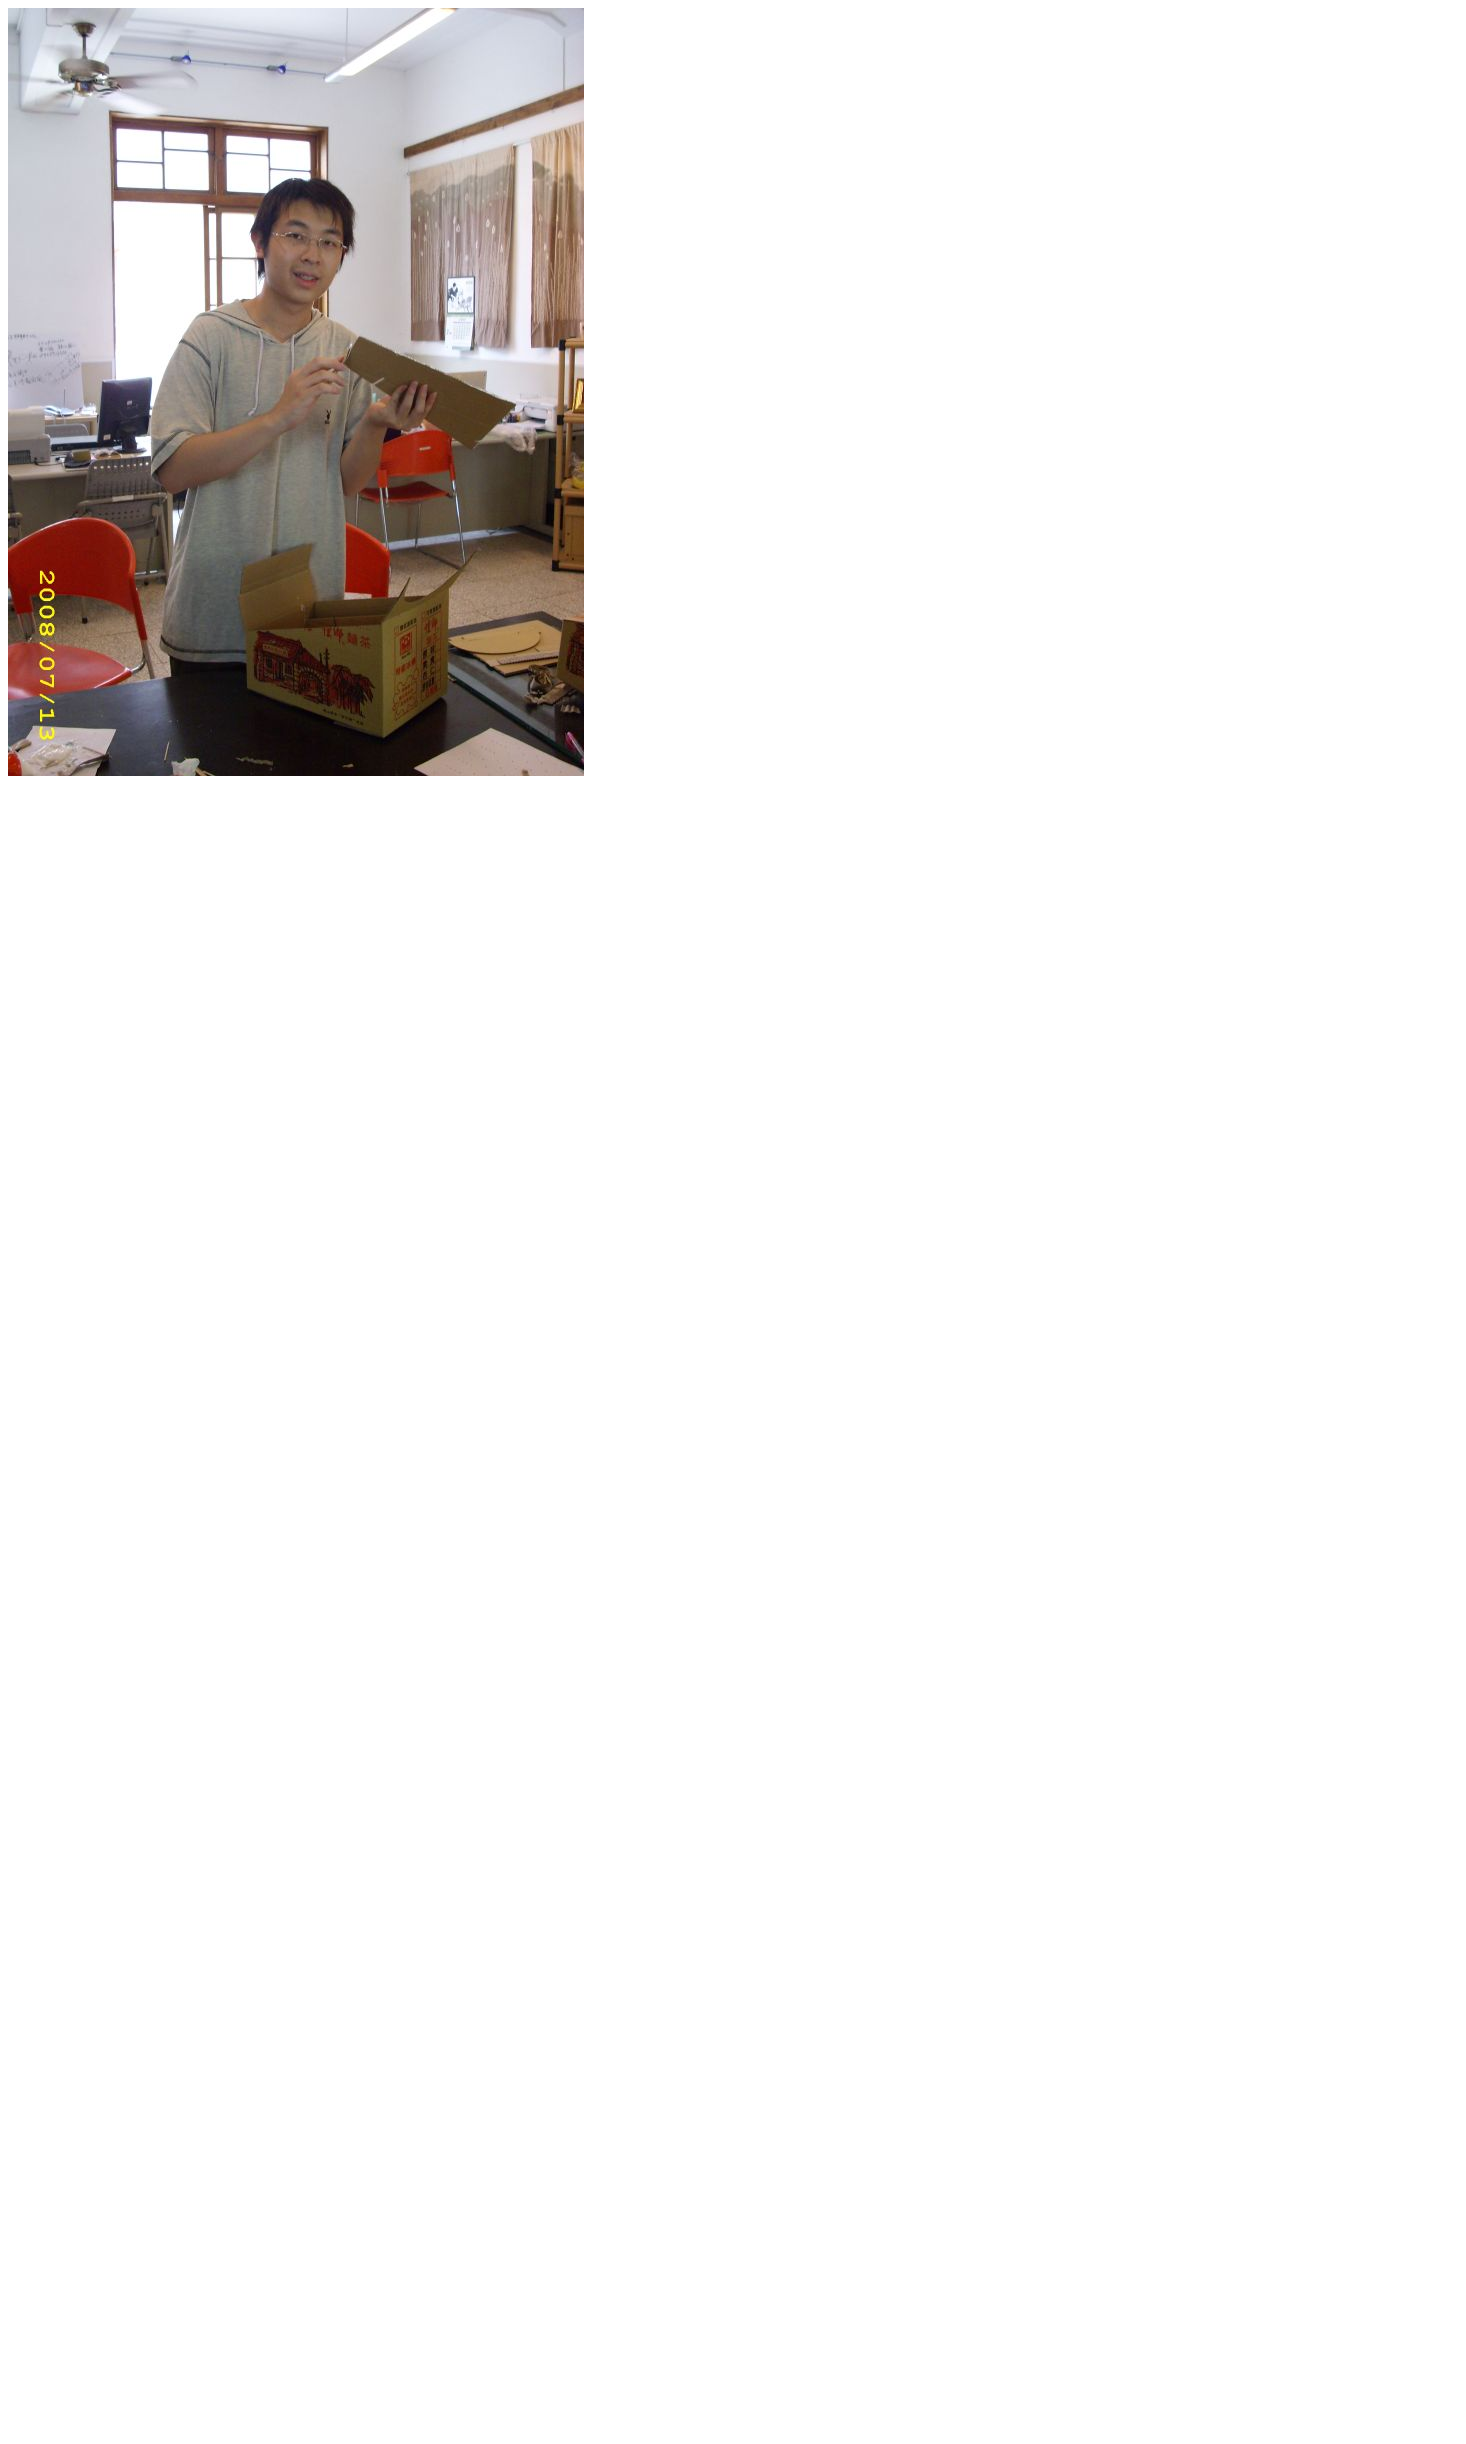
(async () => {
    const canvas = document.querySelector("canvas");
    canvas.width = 1466;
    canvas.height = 2444;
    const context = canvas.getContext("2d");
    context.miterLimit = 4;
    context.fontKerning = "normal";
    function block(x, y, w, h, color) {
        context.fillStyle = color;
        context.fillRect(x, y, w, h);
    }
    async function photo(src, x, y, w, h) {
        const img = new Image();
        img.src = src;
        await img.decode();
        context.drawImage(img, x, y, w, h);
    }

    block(0, 0, 1466, 2444, "rgb(255, 255, 255)");
    await photo("media/1.png", 8, 8, 576, 768);
})();
